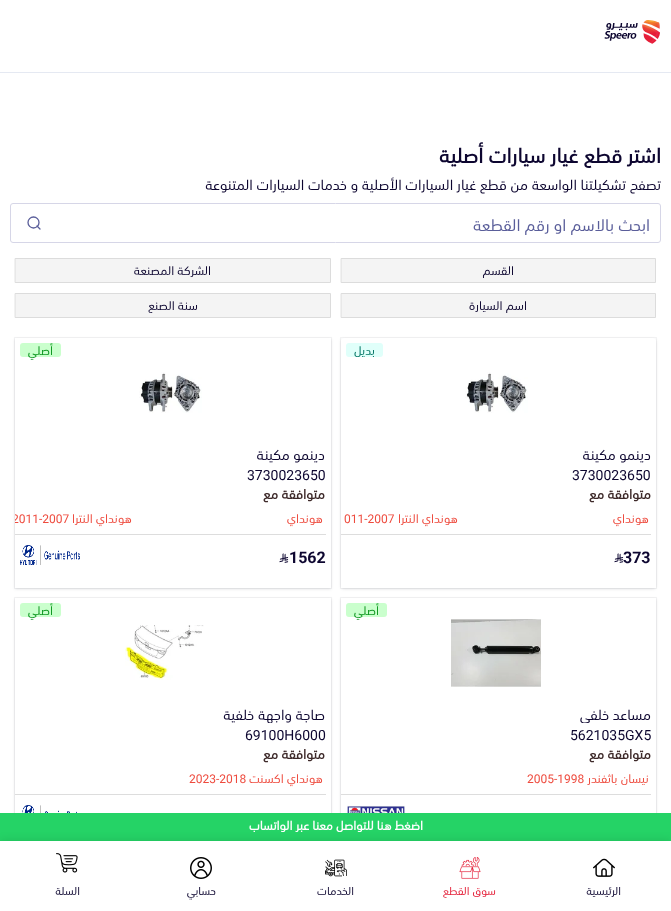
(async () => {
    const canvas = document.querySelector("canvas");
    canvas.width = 671;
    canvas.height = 911;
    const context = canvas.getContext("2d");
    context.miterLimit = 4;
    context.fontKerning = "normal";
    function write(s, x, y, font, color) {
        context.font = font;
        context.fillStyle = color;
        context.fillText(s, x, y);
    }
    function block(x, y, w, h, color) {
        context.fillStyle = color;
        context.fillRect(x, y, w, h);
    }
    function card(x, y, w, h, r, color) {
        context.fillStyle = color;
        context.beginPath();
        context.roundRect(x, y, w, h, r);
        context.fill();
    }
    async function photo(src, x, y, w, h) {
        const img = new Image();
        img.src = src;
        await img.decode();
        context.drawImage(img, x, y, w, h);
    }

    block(0, 0, 671, 911, "rgb(255, 255, 255)");
    block(0, 72, 671, 1, "rgb(229, 233, 242)");
    await photo("media/1.png", 604, 20, 56, 24);
    context.direction = "rtl";
    write("اشتر قطع غيار سيارات أصلية", 661, 163, "bold 20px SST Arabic", "rgb(13, 6, 48)");
    write("تصفح تشكيلتنا الواسعة من قطع غيار السيارات الأصلية و خدمات السيارات المتنوعة", 661, 190, "14px SST Arabic", "rgb(13, 6, 48)");
    context.beginPath();
    context.roundRect(10.5, 203.5, 650, 39, 2.5);
    context.strokeStyle = "rgb(214, 214, 231)";
    context.stroke();
    write("ابحث بالاسم او رقم القطعة", 650, 231, "16px SST Arabic", "rgb(90, 94, 154)");
    context.beginPath();
    context.arc(33.5, 222.5, 5.5, 0, Math.PI * 2);
    context.strokeStyle = "rgb(90, 94, 154)";
    context.lineWidth = 1.3;
    context.stroke();
    context.beginPath();
    context.moveTo(40, 229);
    context.lineTo(37, 226);
    context.lineCap = "round";
    context.lineJoin = "round";
    context.stroke();
    context.fillStyle = "rgb(244, 244, 244)";
    context.beginPath();
    context.rect(341.5, 258.5, 314, 24);
    context.fill();
    context.strokeStyle = "rgb(220, 220, 220)";
    context.lineWidth = 1;
    context.lineJoin = "miter";
    context.stroke();
    write("القسم", 514, 275, "12px SST Arabic", "rgb(13, 6, 48)");
    context.fillStyle = "rgb(244, 244, 244)";
    context.beginPath();
    context.rect(15.5, 258.5, 315, 24);
    context.fill();
    context.stroke();
    write("الشركة المصنعة", 211, 275, "12px SST Arabic", "rgb(13, 6, 48)");
    context.fillStyle = "rgb(244, 244, 244)";
    context.beginPath();
    context.rect(341.5, 293.5, 314, 24);
    context.fill();
    context.stroke();
    write("اسم السيارة", 527, 310, "12px SST Arabic", "rgb(13, 6, 48)");
    context.fillStyle = "rgb(244, 244, 244)";
    context.beginPath();
    context.rect(15.5, 293.5, 315, 24);
    context.fill();
    context.stroke();
    write("سنة الصنع", 198, 310, "12px SST Arabic", "rgb(13, 6, 48)");
    context.fillStyle = "rgba(35, 38, 59, 0.15)";
    context.filter = "blur(1.5px)";
    context.beginPath();
    context.roundRect(341, 339, 315, 250, 3);
    context.fill();
    context.filter = "none";
    context.strokeStyle = "rgba(35, 38, 59, 0.05)";
    context.strokeRect(340.5, 337.5, 316, 251);
    context.fillStyle = "rgb(255, 255, 255)";
    context.beginPath();
    context.roundRect(341, 338, 315, 250, [3, 3, 0, 0]);
    context.fill();
    card(346, 343, 37, 14, 3, "rgb(224, 255, 250)");
    write("بديل", 375, 355, "12px SST Arabic", "rgb(4, 118, 101)");
    await photo("media/2.png", 465, 372, 63, 41);
    write("دينمو مكينة", 651, 460, "14px SST Arabic", "rgb(13, 6, 48)");
    context.direction = "ltr";
    write("3730023650", 572, 480, "14px Roboto", "rgb(13, 6, 48)");
    context.direction = "rtl";
    write("متوافقة مع", 651, 499, "bold 13px SST Arabic", "rgb(61, 41, 41)");
    block(341, 534, 310, 1, "rgb(221, 221, 221)");
    write("هونداي", 649, 523, "12px SST Arabic", "rgb(238, 75, 62)");
    write("هونداي النترا", 458, 523, "12px SST Arabic", "rgb(238, 75, 62)");
    context.direction = "ltr";
    write("011-2007", 344, 523, "12px Roboto", "rgb(238, 75, 62)");
    await photo("media/3.png", 614, 553, 10, 10);
    write("373", 623, 563, "bold 16px Roboto", "rgb(13, 6, 48)");
    context.save();
    context.beginPath();
    context.moveTo(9, 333);
    context.lineTo(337, 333);
    context.lineTo(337, 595);
    context.lineTo(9, 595);
    context.closePath();
    context.moveTo(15, 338);
    context.lineTo(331, 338);
    context.lineTo(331, 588);
    context.lineTo(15, 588);
    context.closePath();
    context.clip("evenodd");
    context.fillStyle = "rgba(35, 38, 59, 0.15)";
    context.filter = "blur(1.5px)";
    context.beginPath();
    context.rect(15, 339, 316, 250);
    context.fill();
    context.filter = "none";
    context.restore();
    context.strokeRect(14.5, 337.5, 317, 251);
    card(20, 343, 41, 14, 3, "rgb(202, 255, 205)");
    context.direction = "rtl";
    write("أصلي", 53, 355, "12px SST Arabic", "rgb(16, 153, 34)");
    await photo("media/4.png", 139, 372, 63, 41);
    write("دينمو مكينة", 325, 460, "14px SST Arabic", "rgb(13, 6, 48)");
    context.direction = "ltr";
    write("3730023650", 247, 480, "14px Roboto", "rgb(13, 6, 48)");
    context.direction = "rtl";
    write("متوافقة مع", 325, 499, "bold 13px SST Arabic", "rgb(61, 41, 41)");
    block(15, 534, 311, 1, "rgb(221, 221, 221)");
    write("هونداي", 323, 523, "12px SST Arabic", "rgb(238, 75, 62)");
    write("هونداي النترا", 132, 523, "12px SST Arabic", "rgb(238, 75, 62)");
    context.direction = "ltr";
    write("-2007", 39, 523, "12px Roboto", "rgb(238, 75, 62)");
    context.save();
    context.beginPath();
    context.rect(15, 503, 311, 31);
    context.clip();
    write("2011", 12, 523, "12px Roboto", "rgb(238, 75, 62)");
    context.restore();
    write("1562", 289, 563, "bold 16px Roboto", "rgb(13, 6, 48)");
    await photo("media/3.png", 279, 553, 10, 10);
    await photo("media/5.png", 20, 545, 60, 20);
    context.save();
    context.beginPath();
    context.moveTo(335, 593);
    context.lineTo(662, 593);
    context.lineTo(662, 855);
    context.lineTo(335, 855);
    context.closePath();
    context.moveTo(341, 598);
    context.lineTo(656, 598);
    context.lineTo(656, 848);
    context.lineTo(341, 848);
    context.closePath();
    context.clip("evenodd");
    context.fillStyle = "rgba(35, 38, 59, 0.15)";
    context.filter = "blur(1.5px)";
    context.beginPath();
    context.rect(341, 599, 315, 250);
    context.fill();
    context.filter = "none";
    context.restore();
    context.strokeRect(340.5, 597.5, 316, 251);
    card(346, 603, 41, 14, 3, "rgb(202, 255, 205)");
    context.direction = "rtl";
    write("أصلي", 379, 615, "12px SST Arabic", "rgb(16, 153, 34)");
    await photo("media/6.png", 451, 619, 90, 68);
    context.save();
    context.beginPath();
    context.rect(341, 703, 310, 20);
    context.clip();
    write("مساعد خلفي", 651, 720, "14px SST Arabic", "rgb(13, 6, 48)");
    context.restore();
    context.direction = "ltr";
    write("5621035GX5", 570, 740, "14px Roboto", "rgb(13, 6, 48)");
    context.direction = "rtl";
    write("متوافقة مع", 651, 759, "bold 13px SST Arabic", "rgb(61, 41, 41)");
    block(341, 794, 310, 1, "rgb(221, 221, 221)");
    write("نيسان باثفندر", 649, 783, "12px SST Arabic", "rgb(238, 75, 62)");
    context.direction = "ltr";
    write("2005-1998", 527, 783, "12px Roboto", "rgb(238, 75, 62)");
    await photo("media/7.png", 347, 805, 59, 8);
    context.save();
    context.beginPath();
    context.moveTo(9, 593);
    context.lineTo(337, 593);
    context.lineTo(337, 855);
    context.lineTo(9, 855);
    context.closePath();
    context.moveTo(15, 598);
    context.lineTo(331, 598);
    context.lineTo(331, 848);
    context.lineTo(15, 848);
    context.closePath();
    context.clip("evenodd");
    context.fillStyle = "rgba(35, 38, 59, 0.15)";
    context.filter = "blur(1.5px)";
    context.beginPath();
    context.rect(15, 599, 316, 250);
    context.fill();
    context.filter = "none";
    context.restore();
    context.strokeRect(14.5, 597.5, 317, 251);
    card(20, 603, 41, 14, 3, "rgb(202, 255, 205)");
    context.direction = "rtl";
    write("أصلي", 53, 615, "12px SST Arabic", "rgb(16, 153, 34)");
    await photo("media/8.png", 125, 625, 79, 55);
    context.save();
    context.beginPath();
    context.rect(15, 703, 311, 20);
    context.clip();
    write("صاجة واجهة خلفية", 325, 720, "14px SST Arabic", "rgb(13, 6, 48)");
    context.restore();
    context.direction = "ltr";
    write("69100H6000", 245, 740, "14px Roboto", "rgb(13, 6, 48)");
    context.direction = "rtl";
    write("متوافقة مع", 325, 759, "bold 13px SST Arabic", "rgb(61, 41, 41)");
    block(15, 794, 311, 1, "rgb(221, 221, 221)");
    write("هونداي اكسنت", 323, 783, "12px SST Arabic", "rgb(238, 75, 62)");
    context.direction = "ltr";
    write("2023-2018", 189, 783, "12px Roboto", "rgb(238, 75, 62)");
    await photo("media/9.png", 22, 805, 55, 8);
    block(0, 813, 671, 28, "rgb(37, 211, 102)");
    context.direction = "rtl";
    write("اضغط هنا للتواصل معنا عبر الواتساب", 423, 830, "bold 12px SST Arabic", "rgb(255, 255, 255)");
    context.fillStyle = "rgba(0, 0, 0, 0.1)";
    context.filter = "blur(4px)";
    context.beginPath();
    context.rect(0, 840, 671, 70);
    context.fill();
    context.filter = "none";
    block(0, 841, 671, 70, "rgb(255, 255, 255)");
    await photo("media/10.png", 593, 858, 22, 19);
    write("الرئيسية", 621, 895, "11px SST Arabic", "rgb(13, 6, 48)");
    await photo("media/11.png", 459, 857, 22, 22);
    write("سوق القطع", 496, 895, "11px SST Arabic", "rgb(228, 31, 56)");
    await photo("media/12.png", 325, 859, 22, 18);
    write("الخدمات", 354, 895, "11px SST Arabic", "rgb(13, 6, 48)");
    await photo("media/13.png", 190, 857, 22, 22);
    write("حسابي", 216, 895, "11px SST Arabic", "rgb(13, 6, 48)");
    await photo("media/14.png", 56, 853, 22, 20);
    write("السلة", 80, 895, "11px SST Arabic", "rgb(13, 6, 48)");
})();
